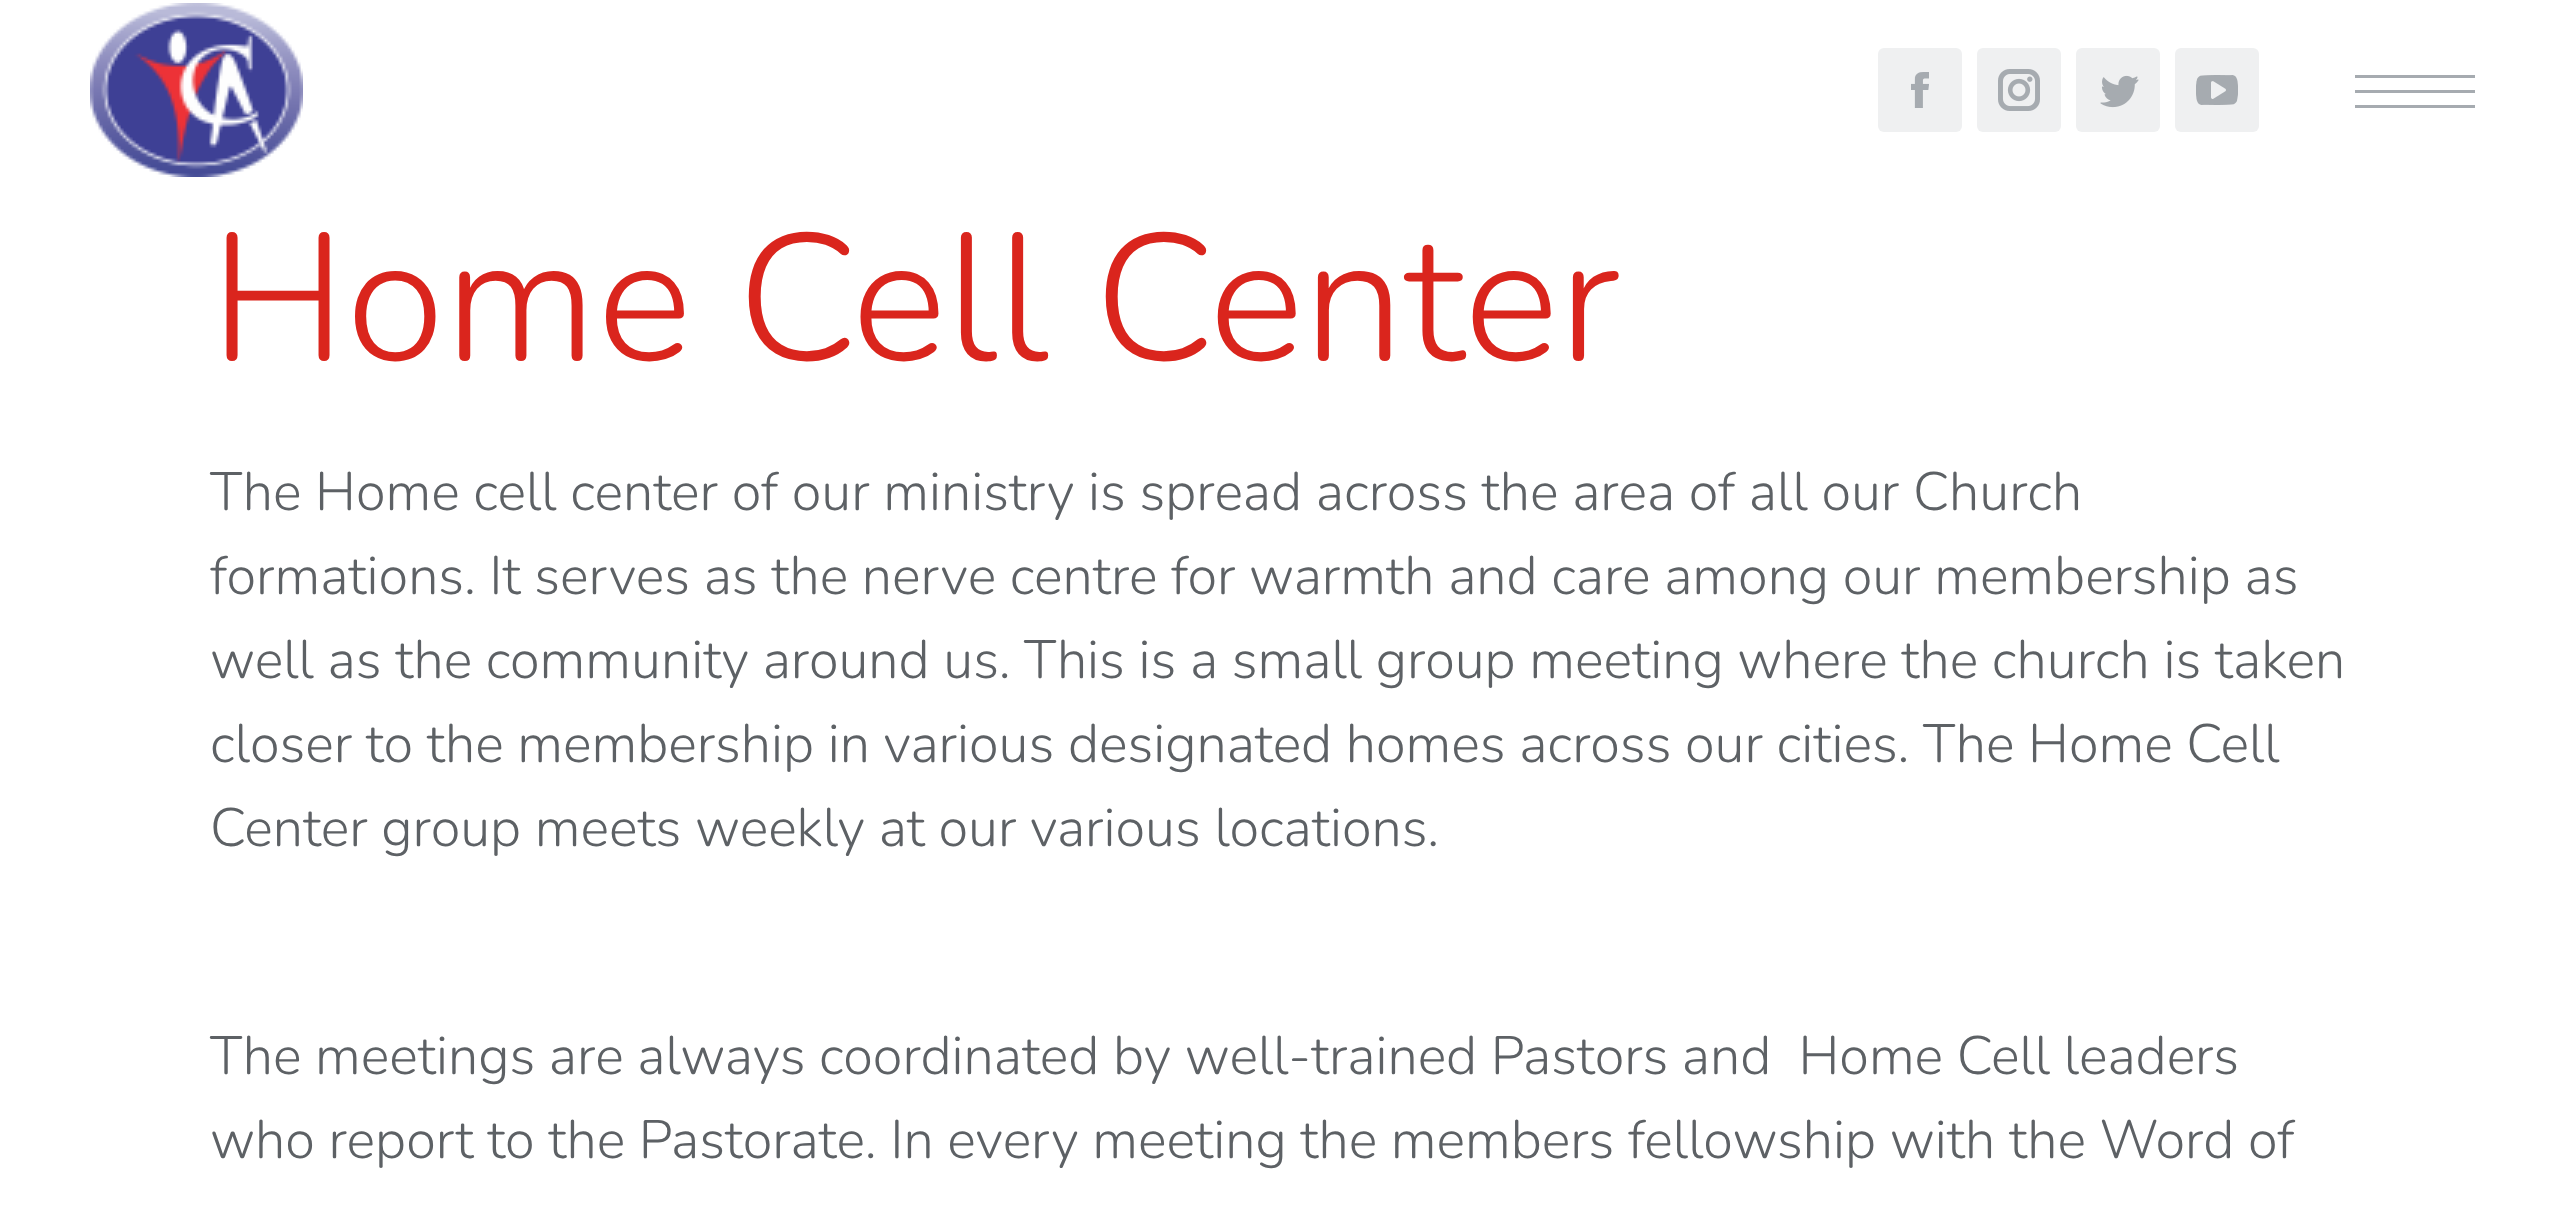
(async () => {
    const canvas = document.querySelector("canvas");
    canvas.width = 2563;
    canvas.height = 1225;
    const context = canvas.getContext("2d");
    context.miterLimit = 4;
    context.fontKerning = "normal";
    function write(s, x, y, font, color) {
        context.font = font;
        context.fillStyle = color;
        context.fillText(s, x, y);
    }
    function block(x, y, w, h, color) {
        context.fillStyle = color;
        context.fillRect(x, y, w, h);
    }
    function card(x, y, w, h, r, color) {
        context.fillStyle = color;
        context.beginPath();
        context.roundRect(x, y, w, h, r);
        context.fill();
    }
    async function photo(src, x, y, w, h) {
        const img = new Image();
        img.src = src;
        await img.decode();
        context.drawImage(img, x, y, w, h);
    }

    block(0, 0, 2563, 1225, "rgb(255, 255, 255)");
    await photo("media/1.png", 90, 3, 213, 174);
    card(1878, 48, 84, 84, 6, "rgb(239, 240, 241)");
    await photo("media/2.png", 1911, 72, 18, 36);
    card(1977, 48, 84, 84, 6, "rgb(239, 240, 241)");
    await photo("media/3.png", 1998, 69, 42, 42);
    card(2076, 48, 84, 84, 6, "rgb(239, 240, 241)");
    await photo("media/4.png", 2100, 75, 39, 33);
    card(2175, 48, 84, 84, 6, "rgb(239, 240, 241)");
    await photo("media/5.png", 2196, 75, 42, 30);
    block(2355, 75, 120, 3, "rgb(166, 171, 176)");
    block(2355, 90, 120, 3, "rgb(166, 171, 176)");
    block(2355, 105, 120, 3, "rgb(166, 171, 176)");
    write("Home Cell Center", 210, 360, "300 180px Nunito", "rgb(218, 37, 29)");
    write("The Home cell center of our ministry is spread across the area of all our Church", 210, 510, "300 54px Nunito", "rgb(93, 97, 101)");
    write("formations. It serves as the nerve centre for warmth and care among our membership as", 210, 594, "300 54px Nunito", "rgb(93, 97, 101)");
    write("well as the community around us. This is a small group meeting where the church is taken", 210, 678, "300 54px Nunito", "rgb(93, 97, 101)");
    write("closer to the membership in various designated homes across our cities. The Home Cell", 210, 762, "300 54px Nunito", "rgb(93, 97, 101)");
    write("Center group meets weekly at our various locations.", 210, 846, "300 54px Nunito", "rgb(93, 97, 101)");
    write("The meetings are always coordinated by well-trained Pastors and  Home Cell leaders", 210, 1074, "300 54px Nunito", "rgb(93, 97, 101)");
    write("who report to the Pastorate. In every meeting the members fellowship with the Word of", 210, 1158, "300 54px Nunito", "rgb(93, 97, 101)");
})();
